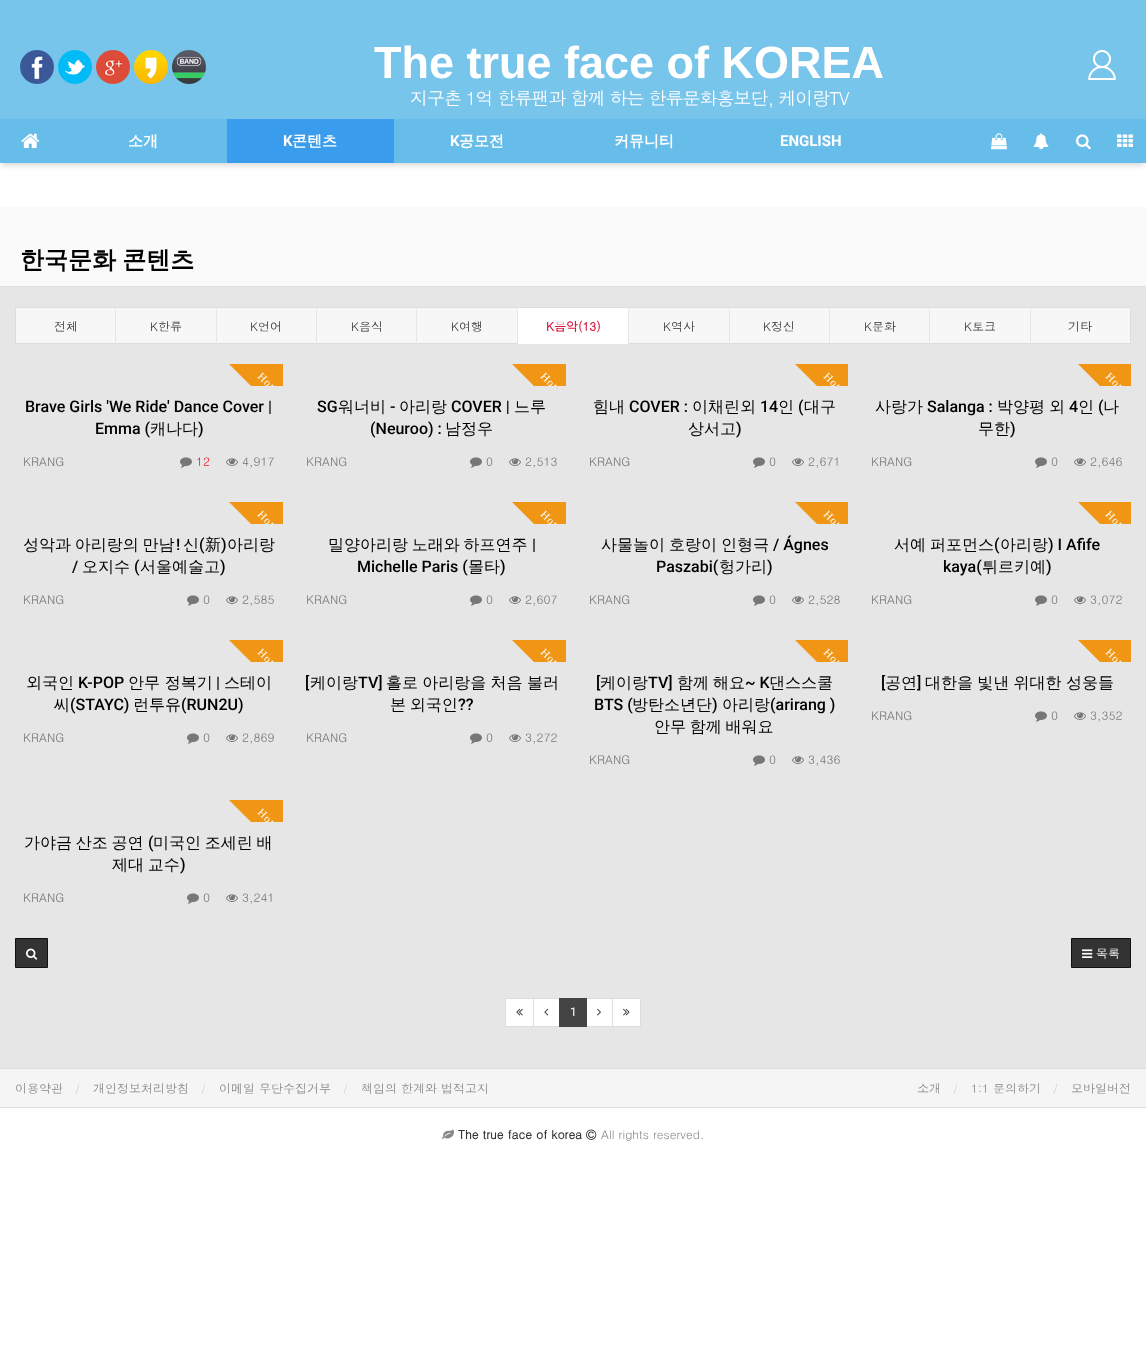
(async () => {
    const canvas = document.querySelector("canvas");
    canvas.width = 1146;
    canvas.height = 1351;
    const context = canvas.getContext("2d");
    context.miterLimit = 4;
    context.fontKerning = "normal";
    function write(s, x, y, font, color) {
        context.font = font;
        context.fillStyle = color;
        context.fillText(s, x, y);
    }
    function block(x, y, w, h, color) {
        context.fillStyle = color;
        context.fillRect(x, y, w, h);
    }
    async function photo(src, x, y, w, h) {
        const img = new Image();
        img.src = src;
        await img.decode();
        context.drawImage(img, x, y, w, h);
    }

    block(0, 0, 1146, 1351, "rgb(255, 255, 255)");
    block(0, 0, 1146, 119, "rgb(120, 197, 235)");
    await photo("media/1.png", 20, 50, 34, 34);
    await photo("media/2.png", 58, 50, 34, 34);
    await photo("media/3.png", 96, 50, 34, 34);
    await photo("media/4.png", 134, 50, 34, 34);
    await photo("media/5.png", 172, 50, 34, 34);
    write("The true face of KOREA", 374, 78, "bold 45px Liberation Sans", "rgb(255, 255, 255)");
    context.letterSpacing = "-1px";
    write("지구촌 1억 한류팬과 함께 하는 한류문화홍보단, 케이랑TV", 410, 105, "18px Dotum", "rgb(255, 255, 255)");
    await photo("media/6.png", 1088, 50, 28, 30);
    context.fillStyle = "rgba(25, 25, 25, 0.15)";
    context.filter = "blur(2.5px)";
    context.beginPath();
    context.rect(2, 126, 1142, 40);
    context.fill();
    context.filter = "none";
    block(0, 119, 1146, 44, "rgb(103, 189, 233)");
    await photo("media/7.png", 21, 133, 19, 15);
    context.letterSpacing = "0px";
    write("소개", 128, 146, "bold 15px WenQuanYi Zen Hei", "rgb(255, 255, 255)");
    block(227, 119, 167, 44, "rgb(58, 156, 236)");
    write("K", 283, 146, "bold 15px Roboto", "rgb(255, 255, 255)");
    write("콘텐츠", 292, 146, "bold 15px WenQuanYi Zen Hei", "rgb(255, 255, 255)");
    write("K", 450, 146, "bold 15px Roboto", "rgb(255, 255, 255)");
    write("공모전", 459, 146, "bold 15px WenQuanYi Zen Hei", "rgb(255, 255, 255)");
    write("커뮤니티", 614, 146, "bold 15px WenQuanYi Zen Hei", "rgb(255, 255, 255)");
    write("ENGLISH", 780, 146, "bold 15px Roboto", "rgb(255, 255, 255)");
    await photo("media/8.png", 991, 133, 16, 17);
    await photo("media/9.png", 1033, 133, 16, 17);
    await photo("media/10.png", 1076, 134, 15, 16);
    await photo("media/11.png", 1117, 134, 16, 13);
    block(0, 207, 1146, 79, "rgb(250, 250, 250)");
    block(0, 286, 1146, 1, "rgb(223, 223, 223)");
    context.wordSpacing = "-1px";
    write("한국문화 콘텐츠", 20, 268, "bold 24px WenQuanYi Zen Hei", "rgb(0, 0, 0)");
    block(0, 287, 1146, 781, "rgb(230, 230, 230)");
    block(16, 308, 99, 35, "rgb(247, 247, 247)");
    block(15, 307, 1116, 1, "rgb(221, 221, 221)");
    block(15, 307, 1, 37, "rgb(221, 221, 221)");
    block(16, 343, 99, 1, "rgb(221, 221, 221)");
    context.wordSpacing = "0px";
    write("전체", 54, 331, "12px Dotum", "rgb(51, 51, 51)");
    block(116, 308, 100, 35, "rgb(247, 247, 247)");
    block(115, 307, 1, 1, "rgb(230, 230, 230)");
    block(116, 343, 100, 1, "rgb(221, 221, 221)");
    write("K한류", 150, 331, "12px Dotum", "rgb(51, 51, 51)");
    block(217, 308, 99, 35, "rgb(247, 247, 247)");
    block(216, 307, 1, 1, "rgb(230, 230, 230)");
    block(217, 343, 99, 1, "rgb(221, 221, 221)");
    write("K언어", 250, 331, "12px Dotum", "rgb(51, 51, 51)");
    block(317, 308, 99, 35, "rgb(247, 247, 247)");
    block(316, 307, 1, 1, "rgb(230, 230, 230)");
    block(317, 343, 99, 1, "rgb(221, 221, 221)");
    write("K음식", 351, 331, "12px Dotum", "rgb(51, 51, 51)");
    block(417, 308, 100, 35, "rgb(247, 247, 247)");
    block(416, 307, 1, 1, "rgb(230, 230, 230)");
    block(417, 343, 100, 1, "rgb(221, 221, 221)");
    write("K여행", 451, 331, "12px Dotum", "rgb(51, 51, 51)");
    block(518, 308, 110, 36, "rgb(255, 255, 255)");
    block(517, 307, 1, 1, "rgb(230, 230, 230)");
    write("K음악(13)", 546, 331, "bold 12px Dotum", "rgb(220, 20, 60)");
    block(629, 308, 100, 35, "rgb(247, 247, 247)");
    block(628, 307, 1, 1, "rgb(230, 230, 230)");
    block(629, 343, 100, 1, "rgb(221, 221, 221)");
    write("K역사", 663, 331, "12px Dotum", "rgb(51, 51, 51)");
    block(730, 308, 99, 35, "rgb(247, 247, 247)");
    block(729, 307, 1, 1, "rgb(230, 230, 230)");
    block(730, 343, 99, 1, "rgb(221, 221, 221)");
    write("K정신", 763, 331, "12px Dotum", "rgb(51, 51, 51)");
    block(830, 308, 99, 35, "rgb(247, 247, 247)");
    block(829, 307, 1, 1, "rgb(230, 230, 230)");
    block(830, 343, 99, 1, "rgb(221, 221, 221)");
    write("K문화", 864, 331, "12px Dotum", "rgb(51, 51, 51)");
    block(930, 308, 100, 35, "rgb(247, 247, 247)");
    block(929, 307, 1, 1, "rgb(230, 230, 230)");
    block(930, 343, 100, 1, "rgb(221, 221, 221)");
    write("K토크", 964, 331, "12px Dotum", "rgb(51, 51, 51)");
    block(1031, 308, 99, 35, "rgb(247, 247, 247)");
    block(1130, 307, 1, 37, "rgb(221, 221, 221)");
    block(1030, 307, 1, 1, "rgb(230, 230, 230)");
    block(1031, 343, 99, 1, "rgb(221, 221, 221)");
    write("기타", 1068, 331, "12px Dotum", "rgb(51, 51, 51)");
    context.save();
    context.beginPath();
    context.rect(15, 364, 268, 22);
    context.clip();
    context.fillStyle = "rgb(240, 150, 20)";
    context.beginPath();
    context.moveTo(239, 310);
    context.lineTo(338, 409);
    context.lineTo(306, 441);
    context.lineTo(207, 342);
    context.closePath();
    context.fill();
    context.letterSpacing = "1px";
    context.font = "11px Liberation Serif";
    context.fillStyle = "rgb(255, 255, 255)";
    context.save();
    context.translate(257, 377);
    context.rotate(45 * Math.PI / 180);
    context.fillText("Hot", 0, 0);
    context.restore();
    context.restore();
    write("Brave Girls 'We Ride' Dance Cover |", 25, 412, "500 16px Roboto", "rgb(0, 0, 0)");
    write("Emma (", 95, 434, "500 16px Roboto", "rgb(0, 0, 0)");
    write("캐나다", 150, 434, "500 16px WenQuanYi Zen Hei", "rgb(0, 0, 0)");
    write(")", 198, 434, "500 16px Roboto", "rgb(0, 0, 0)");
    write("KRANG", 23, 466, "12px Dotum", "rgb(119, 119, 119)");
    await photo("media/12.png", 180, 457, 12, 11);
    write("12", 196, 466, "12px Dotum", "rgb(233, 27, 35)");
    await photo("media/13.png", 226, 458, 12, 8);
    write("4,917", 242, 466, "12px Dotum", "rgb(119, 119, 119)");
    context.save();
    context.beginPath();
    context.rect(298, 364, 268, 22);
    context.clip();
    context.fillStyle = "rgb(240, 150, 20)";
    context.beginPath();
    context.moveTo(522, 310);
    context.lineTo(621, 409);
    context.lineTo(589, 441);
    context.lineTo(490, 342);
    context.closePath();
    context.fill();
    context.letterSpacing = "1px";
    context.font = "11px Liberation Serif";
    context.fillStyle = "rgb(255, 255, 255)";
    context.save();
    context.translate(540, 377);
    context.rotate(45 * Math.PI / 180);
    context.fillText("Hot", 0, 0);
    context.restore();
    context.restore();
    write("SG", 317, 412, "500 16px Roboto", "rgb(0, 0, 0)");
    write("워너비", 338, 412, "500 16px WenQuanYi Zen Hei", "rgb(0, 0, 0)");
    write("-", 390, 412, "500 16px Roboto", "rgb(0, 0, 0)");
    write("아리랑", 399, 412, "500 16px WenQuanYi Zen Hei", "rgb(0, 0, 0)");
    write("COVER |", 451, 412, "500 16px Roboto", "rgb(0, 0, 0)");
    write("느루", 514, 412, "500 16px WenQuanYi Zen Hei", "rgb(0, 0, 0)");
    write("(Neuroo) :", 370, 434, "500 16px Roboto", "rgb(0, 0, 0)");
    write("남정우", 445, 434, "500 16px WenQuanYi Zen Hei", "rgb(0, 0, 0)");
    write("KRANG", 306, 466, "12px Dotum", "rgb(119, 119, 119)");
    await photo("media/12.png", 470, 457, 12, 11);
    write("0", 486, 466, "12px Dotum", "rgb(119, 119, 119)");
    await photo("media/13.png", 509, 458, 12, 8);
    write("2,513", 525, 466, "12px Dotum", "rgb(119, 119, 119)");
    context.save();
    context.beginPath();
    context.rect(581, 364, 267, 22);
    context.clip();
    context.fillStyle = "rgb(240, 150, 20)";
    context.beginPath();
    context.moveTo(805, 310);
    context.lineTo(904, 409);
    context.lineTo(872, 441);
    context.lineTo(773, 342);
    context.closePath();
    context.fill();
    context.letterSpacing = "1px";
    context.font = "11px Liberation Serif";
    context.fillStyle = "rgb(255, 255, 255)";
    context.save();
    context.translate(823, 377);
    context.rotate(45 * Math.PI / 180);
    context.fillText("Hot", 0, 0);
    context.restore();
    context.restore();
    write("힘내", 593, 412, "500 16px WenQuanYi Zen Hei", "rgb(0, 0, 0)");
    write("COVER :", 629, 412, "500 16px Roboto", "rgb(0, 0, 0)");
    write("이채린외", 692, 412, "500 16px WenQuanYi Zen Hei", "rgb(0, 0, 0)");
    write("14", 760, 412, "500 16px Roboto", "rgb(0, 0, 0)");
    write("인", 778, 412, "500 16px WenQuanYi Zen Hei", "rgb(0, 0, 0)");
    write("(", 798, 412, "500 16px Roboto", "rgb(0, 0, 0)");
    write("대구", 804, 412, "500 16px WenQuanYi Zen Hei", "rgb(0, 0, 0)");
    write("상서고", 688, 434, "500 16px WenQuanYi Zen Hei", "rgb(0, 0, 0)");
    write(")", 736, 434, "500 16px Roboto", "rgb(0, 0, 0)");
    write("KRANG", 589, 466, "12px Dotum", "rgb(119, 119, 119)");
    await photo("media/12.png", 753, 457, 12, 11);
    write("0", 769, 466, "12px Dotum", "rgb(119, 119, 119)");
    await photo("media/13.png", 792, 458, 12, 8);
    write("2,671", 808, 466, "12px Dotum", "rgb(119, 119, 119)");
    context.save();
    context.beginPath();
    context.rect(863, 364, 268, 22);
    context.clip();
    context.fillStyle = "rgb(240, 150, 20)";
    context.beginPath();
    context.moveTo(1087, 310);
    context.lineTo(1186, 409);
    context.lineTo(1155, 441);
    context.lineTo(1056, 342);
    context.closePath();
    context.fill();
    context.letterSpacing = "1px";
    context.font = "11px Liberation Serif";
    context.fillStyle = "rgb(255, 255, 255)";
    context.save();
    context.translate(1105, 377);
    context.rotate(45 * Math.PI / 180);
    context.fillText("Hot", 0, 0);
    context.restore();
    context.restore();
    write("사랑가", 875, 412, "500 16px WenQuanYi Zen Hei", "rgb(0, 0, 0)");
    write("Salanga :", 927, 412, "500 16px Roboto", "rgb(0, 0, 0)");
    write("박양평", 997, 412, "500 16px WenQuanYi Zen Hei", "rgb(0, 0, 0)");
    write("외", 1049, 412, "500 16px WenQuanYi Zen Hei", "rgb(0, 0, 0)");
    write("4", 1069, 412, "500 16px Roboto", "rgb(0, 0, 0)");
    write("인", 1078, 412, "500 16px WenQuanYi Zen Hei", "rgb(0, 0, 0)");
    write("(", 1098, 412, "500 16px Roboto", "rgb(0, 0, 0)");
    write("나", 1103, 412, "500 16px WenQuanYi Zen Hei", "rgb(0, 0, 0)");
    write("무한", 978, 434, "500 16px WenQuanYi Zen Hei", "rgb(0, 0, 0)");
    write(")", 1010, 434, "500 16px Roboto", "rgb(0, 0, 0)");
    write("KRANG", 871, 466, "12px Dotum", "rgb(119, 119, 119)");
    await photo("media/12.png", 1035, 457, 12, 11);
    write("0", 1051, 466, "12px Dotum", "rgb(119, 119, 119)");
    await photo("media/13.png", 1074, 458, 12, 8);
    write("2,646", 1090, 466, "12px Dotum", "rgb(119, 119, 119)");
    context.save();
    context.beginPath();
    context.rect(15, 502, 268, 22);
    context.clip();
    context.fillStyle = "rgb(240, 150, 20)";
    context.beginPath();
    context.moveTo(239, 448);
    context.lineTo(338, 547);
    context.lineTo(306, 579);
    context.lineTo(207, 480);
    context.closePath();
    context.fill();
    context.letterSpacing = "1px";
    context.font = "11px Liberation Serif";
    context.fillStyle = "rgb(255, 255, 255)";
    context.save();
    context.translate(257, 515);
    context.rotate(45 * Math.PI / 180);
    context.fillText("Hot", 0, 0);
    context.restore();
    context.restore();
    context.wordSpacing = "-1px";
    write("성악과 아리랑의 만남", 23, 550, "500 16px WenQuanYi Zen Hei", "rgb(0, 0, 0)");
    context.wordSpacing = "0px";
    write("!", 176, 550, "500 16px Roboto", "rgb(0, 0, 0)");
    write("신", 183, 550, "500 16px WenQuanYi Zen Hei", "rgb(0, 0, 0)");
    write("(", 199, 550, "500 16px Roboto", "rgb(0, 0, 0)");
    write("新", 205, 550, "500 16px WenQuanYi Zen Hei", "rgb(0, 0, 0)");
    write(")", 221, 550, "500 16px Roboto", "rgb(0, 0, 0)");
    write("아리랑", 227, 550, "500 16px WenQuanYi Zen Hei", "rgb(0, 0, 0)");
    write("/", 72, 572, "500 16px Roboto", "rgb(0, 0, 0)");
    write("오지수", 82, 572, "500 16px WenQuanYi Zen Hei", "rgb(0, 0, 0)");
    write("(", 134, 572, "500 16px Roboto", "rgb(0, 0, 0)");
    write("서울예술고", 140, 572, "500 16px WenQuanYi Zen Hei", "rgb(0, 0, 0)");
    write(")", 220, 572, "500 16px Roboto", "rgb(0, 0, 0)");
    write("KRANG", 23, 604, "12px Dotum", "rgb(119, 119, 119)");
    await photo("media/12.png", 187, 595, 12, 11);
    write("0", 203, 604, "12px Dotum", "rgb(119, 119, 119)");
    await photo("media/13.png", 226, 596, 12, 8);
    write("2,585", 242, 604, "12px Dotum", "rgb(119, 119, 119)");
    context.save();
    context.beginPath();
    context.rect(298, 502, 268, 22);
    context.clip();
    context.fillStyle = "rgb(240, 150, 20)";
    context.beginPath();
    context.moveTo(522, 448);
    context.lineTo(621, 547);
    context.lineTo(589, 579);
    context.lineTo(490, 480);
    context.closePath();
    context.fill();
    context.letterSpacing = "1px";
    context.font = "11px Liberation Serif";
    context.fillStyle = "rgb(255, 255, 255)";
    context.save();
    context.translate(540, 515);
    context.rotate(45 * Math.PI / 180);
    context.fillText("Hot", 0, 0);
    context.restore();
    context.restore();
    context.wordSpacing = "-1px";
    write("밀양아리랑 노래와 하프연주", 328, 550, "500 16px WenQuanYi Zen Hei", "rgb(0, 0, 0)");
    context.wordSpacing = "0px";
    write("|", 532, 550, "500 16px Roboto", "rgb(0, 0, 0)");
    write("Michelle Paris (", 357, 572, "500 16px Roboto", "rgb(0, 0, 0)");
    write("몰타", 468, 572, "500 16px WenQuanYi Zen Hei", "rgb(0, 0, 0)");
    write(")", 500, 572, "500 16px Roboto", "rgb(0, 0, 0)");
    write("KRANG", 306, 604, "12px Dotum", "rgb(119, 119, 119)");
    await photo("media/12.png", 470, 595, 12, 11);
    write("0", 486, 604, "12px Dotum", "rgb(119, 119, 119)");
    await photo("media/13.png", 509, 596, 12, 8);
    write("2,607", 525, 604, "12px Dotum", "rgb(119, 119, 119)");
    context.save();
    context.beginPath();
    context.rect(581, 502, 267, 22);
    context.clip();
    context.fillStyle = "rgb(240, 150, 20)";
    context.beginPath();
    context.moveTo(805, 448);
    context.lineTo(904, 547);
    context.lineTo(872, 579);
    context.lineTo(773, 480);
    context.closePath();
    context.fill();
    context.letterSpacing = "1px";
    context.font = "11px Liberation Serif";
    context.fillStyle = "rgb(255, 255, 255)";
    context.save();
    context.translate(823, 515);
    context.rotate(45 * Math.PI / 180);
    context.fillText("Hot", 0, 0);
    context.restore();
    context.restore();
    write("사물놀이", 601, 550, "500 16px WenQuanYi Zen Hei", "rgb(0, 0, 0)");
    write("호랑이", 669, 550, "500 16px WenQuanYi Zen Hei", "rgb(0, 0, 0)");
    write("인형극", 721, 550, "500 16px WenQuanYi Zen Hei", "rgb(0, 0, 0)");
    write("/ Ágnes", 773, 550, "500 16px Roboto", "rgb(0, 0, 0)");
    write("Paszabi(", 656, 572, "500 16px Roboto", "rgb(0, 0, 0)");
    write("헝가리", 719, 572, "500 16px WenQuanYi Zen Hei", "rgb(0, 0, 0)");
    write(")", 767, 572, "500 16px Roboto", "rgb(0, 0, 0)");
    write("KRANG", 589, 604, "12px Dotum", "rgb(119, 119, 119)");
    await photo("media/12.png", 753, 595, 12, 11);
    write("0", 769, 604, "12px Dotum", "rgb(119, 119, 119)");
    await photo("media/13.png", 792, 596, 12, 8);
    write("2,528", 808, 604, "12px Dotum", "rgb(119, 119, 119)");
    context.save();
    context.beginPath();
    context.rect(863, 502, 268, 22);
    context.clip();
    context.fillStyle = "rgb(240, 150, 20)";
    context.beginPath();
    context.moveTo(1087, 448);
    context.lineTo(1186, 547);
    context.lineTo(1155, 579);
    context.lineTo(1056, 480);
    context.closePath();
    context.fill();
    context.letterSpacing = "1px";
    context.font = "11px Liberation Serif";
    context.fillStyle = "rgb(255, 255, 255)";
    context.save();
    context.translate(1105, 515);
    context.rotate(45 * Math.PI / 180);
    context.fillText("Hot", 0, 0);
    context.restore();
    context.restore();
    write("서예", 894, 550, "500 16px WenQuanYi Zen Hei", "rgb(0, 0, 0)");
    write("퍼포먼스", 930, 550, "500 16px WenQuanYi Zen Hei", "rgb(0, 0, 0)");
    write("(", 994, 550, "500 16px Roboto", "rgb(0, 0, 0)");
    write("아리랑", 1000, 550, "500 16px WenQuanYi Zen Hei", "rgb(0, 0, 0)");
    write(") I Afife", 1048, 550, "500 16px Roboto", "rgb(0, 0, 0)");
    write("kaya(", 943, 572, "500 16px Roboto", "rgb(0, 0, 0)");
    write("튀르키예", 982, 572, "500 16px WenQuanYi Zen Hei", "rgb(0, 0, 0)");
    write(")", 1046, 572, "500 16px Roboto", "rgb(0, 0, 0)");
    write("KRANG", 871, 604, "12px Dotum", "rgb(119, 119, 119)");
    await photo("media/12.png", 1035, 595, 12, 11);
    write("0", 1051, 604, "12px Dotum", "rgb(119, 119, 119)");
    await photo("media/13.png", 1074, 596, 12, 8);
    write("3,072", 1090, 604, "12px Dotum", "rgb(119, 119, 119)");
    context.save();
    context.beginPath();
    context.rect(15, 640, 268, 22);
    context.clip();
    context.fillStyle = "rgb(240, 150, 20)";
    context.beginPath();
    context.moveTo(239, 586);
    context.lineTo(338, 685);
    context.lineTo(306, 717);
    context.lineTo(207, 618);
    context.closePath();
    context.fill();
    context.letterSpacing = "1px";
    context.font = "11px Liberation Serif";
    context.fillStyle = "rgb(255, 255, 255)";
    context.save();
    context.translate(257, 653);
    context.rotate(45 * Math.PI / 180);
    context.fillText("Hot", 0, 0);
    context.restore();
    context.restore();
    write("외국인", 26, 688, "500 16px WenQuanYi Zen Hei", "rgb(0, 0, 0)");
    write("K-POP", 78, 688, "500 16px Roboto", "rgb(0, 0, 0)");
    write("안무 정복기", 128, 688, "500 16px WenQuanYi Zen Hei", "rgb(0, 0, 0)");
    write("|", 216, 688, "500 16px Roboto", "rgb(0, 0, 0)");
    write("스테이", 224, 688, "500 16px WenQuanYi Zen Hei", "rgb(0, 0, 0)");
    write("씨", 54, 710, "500 16px WenQuanYi Zen Hei", "rgb(0, 0, 0)");
    write("(STAYC)", 70, 710, "500 16px Roboto", "rgb(0, 0, 0)");
    write("런투유", 133, 710, "500 16px WenQuanYi Zen Hei", "rgb(0, 0, 0)");
    write("(RUN2U)", 181, 710, "500 16px Roboto", "rgb(0, 0, 0)");
    write("KRANG", 23, 742, "12px Dotum", "rgb(119, 119, 119)");
    await photo("media/12.png", 187, 733, 12, 11);
    write("0", 203, 742, "12px Dotum", "rgb(119, 119, 119)");
    await photo("media/13.png", 226, 734, 12, 8);
    write("2,869", 242, 742, "12px Dotum", "rgb(119, 119, 119)");
    context.save();
    context.beginPath();
    context.rect(298, 640, 268, 22);
    context.clip();
    context.fillStyle = "rgb(240, 150, 20)";
    context.beginPath();
    context.moveTo(522, 586);
    context.lineTo(621, 685);
    context.lineTo(589, 717);
    context.lineTo(490, 618);
    context.closePath();
    context.fill();
    context.letterSpacing = "1px";
    context.font = "11px Liberation Serif";
    context.fillStyle = "rgb(255, 255, 255)";
    context.save();
    context.translate(540, 653);
    context.rotate(45 * Math.PI / 180);
    context.fillText("Hot", 0, 0);
    context.restore();
    context.restore();
    write("[", 305, 688, "500 16px Roboto", "rgb(0, 0, 0)");
    write("케이랑", 310, 688, "500 16px WenQuanYi Zen Hei", "rgb(0, 0, 0)");
    write("TV]", 358, 688, "500 16px Roboto", "rgb(0, 0, 0)");
    context.wordSpacing = "-0.5px";
    write("홀로 아리랑을 처음 불러", 386, 688, "500 16px WenQuanYi Zen Hei", "rgb(0, 0, 0)");
    context.wordSpacing = "-1px";
    write("본 외국인", 390, 710, "500 16px WenQuanYi Zen Hei", "rgb(0, 0, 0)");
    context.wordSpacing = "0px";
    write("??", 458, 710, "500 16px Roboto", "rgb(0, 0, 0)");
    write("KRANG", 306, 742, "12px Dotum", "rgb(119, 119, 119)");
    await photo("media/12.png", 470, 733, 12, 11);
    write("0", 486, 742, "12px Dotum", "rgb(119, 119, 119)");
    await photo("media/13.png", 509, 734, 12, 8);
    write("3,272", 525, 742, "12px Dotum", "rgb(119, 119, 119)");
    context.save();
    context.beginPath();
    context.rect(581, 640, 267, 22);
    context.clip();
    context.fillStyle = "rgb(240, 150, 20)";
    context.beginPath();
    context.moveTo(805, 586);
    context.lineTo(904, 685);
    context.lineTo(872, 717);
    context.lineTo(773, 618);
    context.closePath();
    context.fill();
    context.letterSpacing = "1px";
    context.font = "11px Liberation Serif";
    context.fillStyle = "rgb(255, 255, 255)";
    context.save();
    context.translate(823, 653);
    context.rotate(45 * Math.PI / 180);
    context.fillText("Hot", 0, 0);
    context.restore();
    context.restore();
    write("[", 596, 688, "500 16px Roboto", "rgb(0, 0, 0)");
    write("케이랑", 600, 688, "500 16px WenQuanYi Zen Hei", "rgb(0, 0, 0)");
    write("TV]", 648, 688, "500 16px Roboto", "rgb(0, 0, 0)");
    write("함께", 677, 688, "500 16px WenQuanYi Zen Hei", "rgb(0, 0, 0)");
    write("해요", 713, 688, "500 16px WenQuanYi Zen Hei", "rgb(0, 0, 0)");
    write("~ K", 745, 688, "500 16px Roboto", "rgb(0, 0, 0)");
    write("댄스스쿨", 769, 688, "500 16px WenQuanYi Zen Hei", "rgb(0, 0, 0)");
    write("BTS (", 594, 710, "500 16px Roboto", "rgb(0, 0, 0)");
    write("방탄소년단", 632, 710, "500 16px WenQuanYi Zen Hei", "rgb(0, 0, 0)");
    write(")", 712, 710, "500 16px Roboto", "rgb(0, 0, 0)");
    write("아리랑", 722, 710, "500 16px WenQuanYi Zen Hei", "rgb(0, 0, 0)");
    write("(arirang )", 770, 710, "500 16px Roboto", "rgb(0, 0, 0)");
    context.wordSpacing = "-1px";
    write("안무 함께 배워요", 654, 732, "500 16px WenQuanYi Zen Hei", "rgb(0, 0, 0)");
    context.wordSpacing = "0px";
    write("KRANG", 589, 764, "12px Dotum", "rgb(119, 119, 119)");
    await photo("media/12.png", 753, 755, 12, 11);
    write("0", 769, 764, "12px Dotum", "rgb(119, 119, 119)");
    await photo("media/13.png", 792, 756, 12, 8);
    write("3,436", 808, 764, "12px Dotum", "rgb(119, 119, 119)");
    context.save();
    context.beginPath();
    context.rect(863, 640, 268, 22);
    context.clip();
    context.fillStyle = "rgb(240, 150, 20)";
    context.beginPath();
    context.moveTo(1087, 586);
    context.lineTo(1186, 685);
    context.lineTo(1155, 717);
    context.lineTo(1056, 618);
    context.closePath();
    context.fill();
    context.letterSpacing = "1px";
    context.font = "11px Liberation Serif";
    context.fillStyle = "rgb(255, 255, 255)";
    context.save();
    context.translate(1105, 653);
    context.rotate(45 * Math.PI / 180);
    context.fillText("Hot", 0, 0);
    context.restore();
    context.restore();
    write("[", 881, 688, "500 16px Roboto", "rgb(0, 0, 0)");
    write("공연", 885, 688, "500 16px WenQuanYi Zen Hei", "rgb(0, 0, 0)");
    write("]", 917, 688, "500 16px Roboto", "rgb(0, 0, 0)");
    context.wordSpacing = "-0.5px";
    write("대한을 빛낸 위대한 성웅들", 925, 688, "500 16px WenQuanYi Zen Hei", "rgb(0, 0, 0)");
    context.wordSpacing = "0px";
    write("KRANG", 871, 720, "12px Dotum", "rgb(119, 119, 119)");
    await photo("media/12.png", 1035, 711, 12, 11);
    write("0", 1051, 720, "12px Dotum", "rgb(119, 119, 119)");
    await photo("media/13.png", 1074, 712, 12, 8);
    write("3,352", 1090, 720, "12px Dotum", "rgb(119, 119, 119)");
    context.save();
    context.beginPath();
    context.rect(15, 800, 268, 22);
    context.clip();
    context.fillStyle = "rgb(240, 150, 20)";
    context.beginPath();
    context.moveTo(239, 746);
    context.lineTo(338, 845);
    context.lineTo(306, 877);
    context.lineTo(207, 778);
    context.closePath();
    context.fill();
    context.letterSpacing = "1px";
    context.font = "11px Liberation Serif";
    context.fillStyle = "rgb(255, 255, 255)";
    context.save();
    context.translate(257, 813);
    context.rotate(45 * Math.PI / 180);
    context.fillText("Hot", 0, 0);
    context.restore();
    context.restore();
    context.wordSpacing = "-1px";
    write("가야금 산조 공연", 24, 848, "500 16px WenQuanYi Zen Hei", "rgb(0, 0, 0)");
    context.wordSpacing = "0px";
    write("(", 148, 848, "500 16px Roboto", "rgb(0, 0, 0)");
    context.wordSpacing = "-1px";
    write("미국인 조세린 배", 153, 848, "500 16px WenQuanYi Zen Hei", "rgb(0, 0, 0)");
    write("제대 교수", 112, 870, "500 16px WenQuanYi Zen Hei", "rgb(0, 0, 0)");
    context.wordSpacing = "0px";
    write(")", 180, 870, "500 16px Roboto", "rgb(0, 0, 0)");
    write("KRANG", 23, 902, "12px Dotum", "rgb(119, 119, 119)");
    await photo("media/12.png", 187, 893, 12, 11);
    write("0", 203, 902, "12px Dotum", "rgb(119, 119, 119)");
    await photo("media/13.png", 226, 894, 12, 8);
    write("3,241", 242, 902, "12px Dotum", "rgb(119, 119, 119)");
    context.fillStyle = "rgb(51, 51, 51)";
    context.beginPath();
    context.rect(15.5, 938.5, 32, 29);
    context.fill();
    context.strokeStyle = "rgb(17, 17, 17)";
    context.stroke();
    await photo("media/14.png", 26, 948, 12, 12);
    context.beginPath();
    context.rect(1071.5, 938.5, 59, 29);
    context.fill();
    context.stroke();
    await photo("media/15.png", 1082, 949, 11, 9);
    write("목록", 1096, 958, "12px Dotum", "rgb(255, 255, 255)");
    context.beginPath();
    context.rect(505.5, 998.5, 28, 28);
    context.fill();
    context.strokeStyle = "rgb(221, 221, 221)";
    context.stroke();
    await photo("media/16.png", 516, 1008, 7, 8);
    context.beginPath();
    context.rect(533.5, 998.5, 26, 28);
    context.fill();
    context.stroke();
    await photo("media/17.png", 544, 1008, 5, 8);
    context.beginPath();
    context.rect(586.5, 998.5, 26, 28);
    context.fill();
    context.stroke();
    block(559, 998, 28, 29, "rgb(68, 68, 68)");
    write("1", 570, 1016, "12px Roboto", "rgb(255, 255, 255)");
    await photo("media/18.png", 597, 1008, 4, 8);
    context.beginPath();
    context.rect(612.5, 998.5, 28, 28);
    context.fill();
    context.stroke();
    await photo("media/19.png", 623, 1008, 7, 8);
    block(0, 1069, 1146, 38, "rgb(245, 245, 245)");
    block(0, 1068, 1146, 1, "rgb(221, 221, 221)");
    block(0, 1107, 1146, 1, "rgb(221, 221, 221)");
    write("이용약관", 15, 1093, "12px Dotum", "rgb(136, 136, 136)");
    write("/", 75, 1093, "12px Dotum", "rgb(204, 204, 204)");
    write("개인정보처리방침", 93, 1093, "12px Dotum", "rgb(136, 136, 136)");
    write("/", 201, 1093, "12px Dotum", "rgb(204, 204, 204)");
    write("이메일 무단수집거부", 219, 1093, "12px Dotum", "rgb(136, 136, 136)");
    write("/", 343, 1093, "12px Dotum", "rgb(204, 204, 204)");
    write("책임의 한계와 법적고지", 361, 1093, "12px Dotum", "rgb(136, 136, 136)");
    write("소개", 917, 1093, "12px Dotum", "rgb(136, 136, 136)");
    write("/", 953, 1093, "12px Dotum", "rgb(204, 204, 204)");
    write("1:1 문의하기", 971, 1093, "12px Dotum", "rgb(136, 136, 136)");
    write("/", 1053, 1093, "12px Dotum", "rgb(204, 204, 204)");
    write("모바일버전", 1071, 1093, "12px Dotum", "rgb(136, 136, 136)");
    await photo("media/20.png", 442, 1129, 12, 10);
    write("The true face of korea", 458, 1139, "bold 12px Dotum", "rgb(51, 51, 51)");
    await photo("media/21.png", 586, 1129, 11, 11);
    write("All rights reserved.", 601, 1139, "12px Dotum", "rgb(136, 136, 136)");
})();
